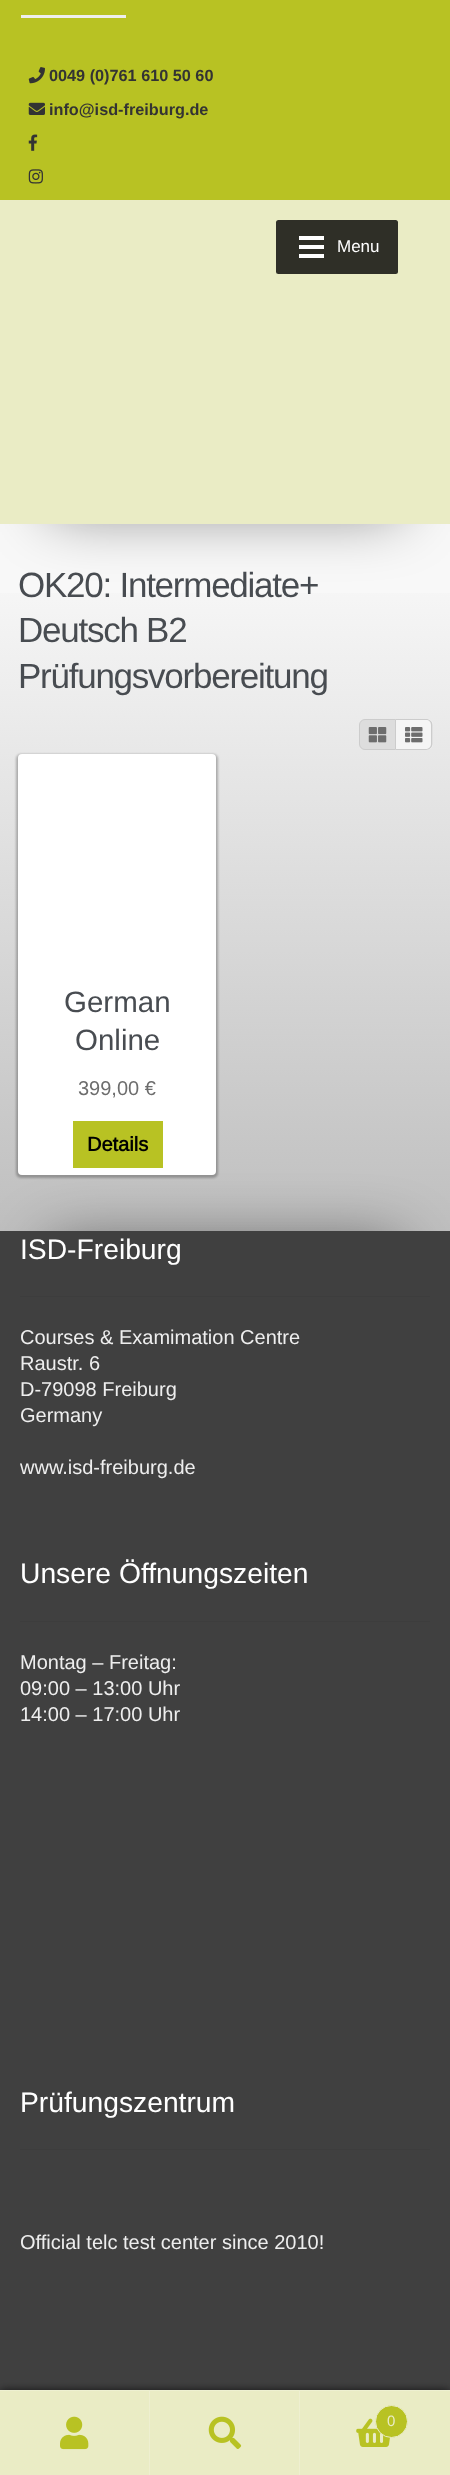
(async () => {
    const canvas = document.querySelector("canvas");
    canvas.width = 450;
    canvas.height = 2475;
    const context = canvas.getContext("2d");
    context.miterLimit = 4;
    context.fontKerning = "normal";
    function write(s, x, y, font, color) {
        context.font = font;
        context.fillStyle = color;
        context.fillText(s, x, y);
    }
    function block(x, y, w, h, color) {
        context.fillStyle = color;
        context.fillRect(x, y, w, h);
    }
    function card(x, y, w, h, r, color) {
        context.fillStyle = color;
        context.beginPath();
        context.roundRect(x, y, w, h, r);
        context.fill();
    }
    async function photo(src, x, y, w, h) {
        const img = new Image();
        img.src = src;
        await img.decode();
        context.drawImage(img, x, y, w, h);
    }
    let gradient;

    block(0, 0, 450, 2475, "rgb(248, 248, 248)");
    block(0, 0, 450, 200, "rgb(184, 194, 35)");
    block(21, 15, 105, 3, "rgb(238, 238, 238)");
    await photo("media/1.png", 28, 67, 17, 17);
    write("0049 (0)761 610 50 60", 49, 81, "bold 16.25px Liberation Sans", "rgb(51, 51, 51)");
    await photo("media/2.png", 28, 102, 17, 13);
    write("info@isd-freiburg.de", 49, 115, "bold 16.25px Liberation Sans", "rgb(51, 51, 51)");
    await photo("media/3.png", 28, 134, 10, 17);
    await photo("media/4.png", 28, 169, 15, 15);
    gradient = context.createLinearGradient(225, 564, 225, 1231);
    gradient.addColorStop(0, "rgb(248, 248, 248)");
    gradient.addColorStop(1, "rgb(191, 191, 191)");
    context.fillStyle = gradient;
    context.fillRect(0, 593, 450, 638);
    context.fillStyle = "rgba(0, 0, 0, 0.5)";
    context.filter = "blur(31px)";
    context.beginPath();
    context.rect(50, 288, 350, 223);
    context.fill();
    context.filter = "none";
    block(0, 200, 450, 324, "rgb(234, 236, 197)");
    card(276, 220, 122, 54, 2.5, "rgb(47, 47, 39)");
    block(299, 236, 25, 4, "rgb(255, 255, 255)");
    block(299, 245, 25, 4, "rgb(255, 255, 255)");
    write("Menu", 337, 252, "17px Arimo", "rgb(255, 255, 255)");
    block(299, 254, 25, 4, "rgb(255, 255, 255)");
    context.letterSpacing = "-1.25px";
    write("OK20: Intermediate+", 18, 597, "35px Arimo", "rgb(72, 76, 81)");
    write("Deutsch B2", 18, 642, "35px Arimo", "rgb(72, 76, 81)");
    write("Prüfungsvorbereitung", 18, 688, "35px Arimo", "rgb(72, 76, 81)");
    context.fillStyle = "rgb(221, 221, 221)";
    context.beginPath();
    context.roundRect(359.5, 719.5, 36, 30, [5.5, 0, 0, 5.5]);
    context.fill();
    context.strokeStyle = "rgb(204, 204, 204)";
    context.stroke();
    await photo("media/5.png", 368, 727, 19, 16);
    context.fillStyle = "rgb(245, 245, 245)";
    context.beginPath();
    context.roundRect(396, 719, 37, 31, [0, 6, 6, 0]);
    context.fill();
    context.fillStyle = "rgb(204, 204, 204)";
    context.beginPath();
    context.moveTo(396, 719);
    context.lineTo(426, 719);
    context.bezierCurveTo(429.5, 719, 432.5, 721.5, 432.5, 725);
    context.lineTo(432.5, 744);
    context.bezierCurveTo(432.5, 747, 429.5, 750, 426, 750);
    context.lineTo(396, 750);
    context.closePath();
    context.moveTo(396, 720);
    context.lineTo(426, 720);
    context.bezierCurveTo(429, 720, 431, 722, 431, 725);
    context.lineTo(431, 744);
    context.bezierCurveTo(431, 746.5, 429, 749, 426, 749);
    context.lineTo(396, 749);
    context.closePath();
    context.fill("evenodd");
    await photo("media/6.png", 405, 727, 18, 16);
    context.fillStyle = "rgba(0, 0, 0, 0.25)";
    context.filter = "blur(1px)";
    context.beginPath();
    context.roundRect(16, 754, 202, 424, 5);
    context.fill();
    context.filter = "none";
    context.fillStyle = "rgba(0, 0, 0, 0.5)";
    context.filter = "blur(31px)";
    context.beginPath();
    context.rect(50, 1244, 350, 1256);
    context.fill();
    context.filter = "none";
    card(18, 754, 198, 421, 4, "rgb(255, 255, 255)");
    context.letterSpacing = "0px";
    write("German", 64, 1012, "29.5px Arimo", "rgb(72, 76, 81)");
    write("Online", 75, 1050, "29.5px Arimo", "rgb(72, 76, 81)");
    write("399,00 €", 78, 1095, "20px Arimo", "rgb(109, 109, 109)");
    block(73, 1121, 90, 47, "rgb(184, 194, 35)");
    write("Details", 87, 1151, "bold 20px Arimo", "rgb(0, 0, 0)");
    block(0, 1231, 450, 1159, "rgb(64, 64, 64)");
    block(20, 1296, 410, 1, "rgb(61, 61, 61)");
    write("ISD-Freiburg", 20, 1259, "28.25px Arimo", "rgb(255, 255, 255)");
    write("Courses & Examimation Centre", 20, 1344, "20px Arimo", "rgb(238, 238, 238)");
    write("Raustr. 6", 20, 1370, "20px Arimo", "rgb(238, 238, 238)");
    write("D-79098 Freiburg", 20, 1396, "20px Arimo", "rgb(238, 238, 238)");
    write("Germany", 20, 1422, "20px Arimo", "rgb(238, 238, 238)");
    write("www.isd-freiburg.de", 20, 1474, "20px Arimo", "rgb(238, 238, 238)");
    block(20, 1621, 410, 1, "rgb(61, 61, 61)");
    write("Unsere Öffnungszeiten", 20, 1583, "28.25px Arimo", "rgb(255, 255, 255)");
    write("Montag – Freitag:", 20, 1669, "20px Arimo", "rgb(238, 238, 238)");
    write("09:00 – 13:00 Uhr", 20, 1695, "20px Arimo", "rgb(238, 238, 238)");
    write("14:00 – 17:00 Uhr", 20, 1721, "20px Arimo", "rgb(238, 238, 238)");
    block(20, 2149, 410, 1, "rgb(61, 61, 61)");
    write("Prüfungszentrum", 20, 2112, "28.25px Arimo", "rgb(255, 255, 255)");
    write("Official telc test center since 2010!", 20, 2249, "20px Arimo", "rgb(238, 238, 238)");
    context.fillStyle = "rgba(0, 0, 0, 0.7)";
    context.filter = "blur(4px)";
    context.beginPath();
    context.rect(0, 2390, 450, 85);
    context.fill();
    context.filter = "none";
    block(0, 2390, 300, 85, "rgb(234, 236, 197)");
    context.fillStyle = "rgb(238, 240, 209)";
    context.beginPath();
    context.moveTo(0, 2390);
    context.lineTo(150, 2390);
    context.lineTo(149, 2391);
    context.lineTo(0, 2391);
    context.closePath();
    context.fill();
    context.fillStyle = "rgba(255, 255, 255, 0.2)";
    context.beginPath();
    context.moveTo(150, 2390);
    context.lineTo(150, 2475);
    context.lineTo(149, 2475);
    context.lineTo(149, 2391);
    context.closePath();
    context.fill();
    await photo("media/7.png", 60, 2416, 29, 34);
    context.fillStyle = "rgb(238, 240, 209)";
    context.beginPath();
    context.moveTo(150, 2390);
    context.lineTo(300, 2390);
    context.lineTo(299, 2391);
    context.lineTo(150, 2391);
    context.closePath();
    context.fill();
    context.fillStyle = "rgba(255, 255, 255, 0.2)";
    context.beginPath();
    context.moveTo(300, 2390);
    context.lineTo(300, 2475);
    context.lineTo(299, 2475);
    context.lineTo(299, 2391);
    context.closePath();
    context.fill();
    await photo("media/8.png", 208, 2416, 34, 33);
    block(300, 2391, 150, 84, "rgb(234, 236, 197)");
    block(300, 2390, 150, 1, "rgb(238, 240, 209)");
    await photo("media/9.png", 356, 2418, 34, 29);
    context.fillStyle = "rgb(184, 194, 35)";
    context.beginPath();
    context.arc(391.5, 2421.5, 16, 0, Math.PI * 2);
    context.fill();
    context.strokeStyle = "rgb(234, 236, 197)";
    context.stroke();
    write("0", 387, 2426, "15px Arimo", "rgb(234, 236, 197)");
})();
